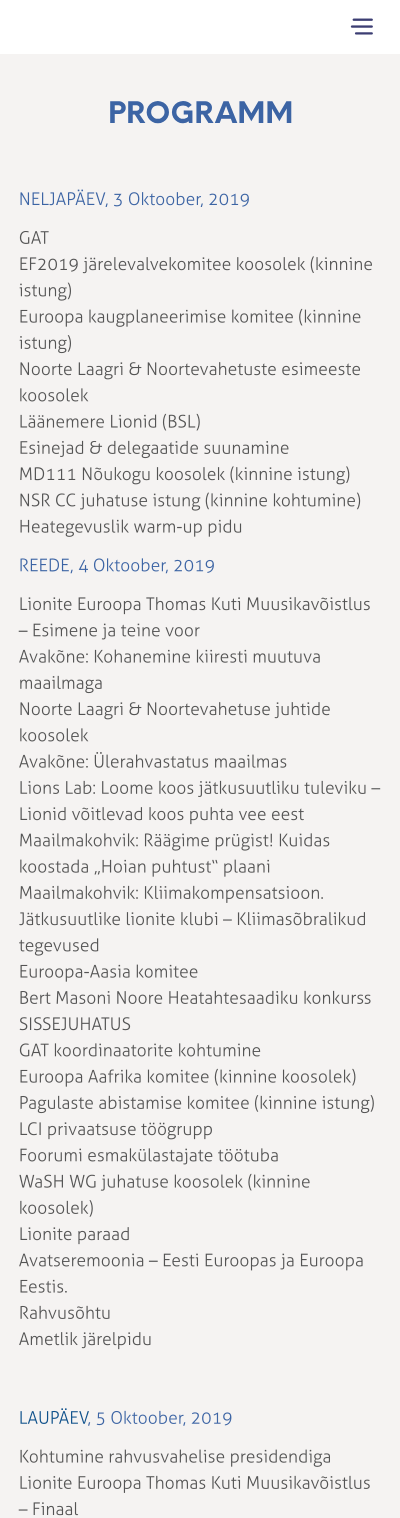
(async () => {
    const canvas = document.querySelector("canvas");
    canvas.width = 400;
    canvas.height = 1518;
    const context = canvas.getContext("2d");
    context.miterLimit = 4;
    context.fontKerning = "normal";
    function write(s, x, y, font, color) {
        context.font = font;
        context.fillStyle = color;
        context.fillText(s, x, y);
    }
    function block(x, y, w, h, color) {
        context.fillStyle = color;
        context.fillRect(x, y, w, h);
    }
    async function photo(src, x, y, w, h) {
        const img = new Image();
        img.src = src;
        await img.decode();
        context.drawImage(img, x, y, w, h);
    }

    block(0, 0, 400, 1518, "rgb(255, 255, 255)");
    await photo("media/1.png", 350, 18, 23, 17);
    block(0, 54, 400, 1464, "rgb(245, 243, 242)");
    write("PROGRAMM", 108, 123, "bold 29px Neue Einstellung", "rgb(60, 100, 164)");
    await photo("media/2.png", 20, 189, 86, 17);
    await photo("media/3.png", 105, 192, 144, 15);
    await photo("media/4.png", 19, 231, 30, 13);
    await photo("media/5.png", 20, 256, 352, 18);
    await photo("media/6.png", 19, 282, 52, 19);
    await photo("media/7.png", 20, 308, 341, 19);
    await photo("media/8.png", 19, 335, 52, 19);
    await photo("media/9.png", 20, 362, 340, 18);
    await photo("media/10.png", 20, 388, 69, 14);
    await photo("media/11.png", 20, 413, 180, 18);
    await photo("media/12.png", 20, 440, 269, 19);
    await photo("media/13.png", 20, 466, 330, 19);
    await photo("media/14.png", 20, 492, 341, 19);
    await photo("media/15.png", 20, 519, 222, 18);
    await photo("media/16.png", 20, 558, 49, 14);
    await photo("media/17.png", 70, 558, 144, 16);
    await photo("media/18.png", 20, 597, 350, 18);
    await photo("media/19.png", 18, 623, 182, 17);
    await photo("media/20.png", 19, 649, 301, 14);
    await photo("media/21.png", 20, 675, 82, 19);
    await photo("media/22.png", 20, 702, 310, 18);
    await photo("media/10.png", 20, 728, 69, 14);
    await photo("media/23.png", 19, 752, 268, 16);
    await photo("media/24.png", 20, 780, 361, 17);
    await photo("media/25.png", 20, 807, 284, 18);
    await photo("media/26.png", 20, 833, 310, 18);
    await photo("media/27.png", 20, 859, 250, 18);
    await photo("media/28.png", 20, 885, 303, 18);
    await photo("media/29.png", 19, 912, 346, 14);
    await photo("media/30.png", 19, 938, 80, 18);
    await photo("media/31.png", 20, 964, 178, 18);
    await photo("media/32.png", 20, 990, 351, 14);
    await photo("media/33.png", 19, 1017, 112, 14);
    await photo("media/34.png", 19, 1043, 242, 14);
    await photo("media/35.png", 20, 1068, 336, 19);
    await photo("media/36.png", 20, 1095, 354, 19);
    await photo("media/37.png", 20, 1122, 192, 18);
    await photo("media/38.png", 20, 1148, 258, 17);
    await photo("media/39.png", 19, 1173, 291, 18);
    await photo("media/40.png", 20, 1200, 73, 17);
    await photo("media/41.png", 20, 1227, 109, 18);
    await photo("media/42.png", 19, 1253, 344, 18);
    await photo("media/43.png", 20, 1279, 47, 14);
    await photo("media/44.png", 20, 1305, 90, 14);
    await photo("media/45.png", 19, 1332, 132, 18);
    await photo("media/46.png", 20, 1408, 69, 16);
    await photo("media/47.png", 88, 1410, 144, 16);
    await photo("media/48.png", 20, 1449, 310, 18);
    await photo("media/49.png", 20, 1475, 350, 18);
    await photo("media/50.png", 18, 1502, 61, 14);
})();
